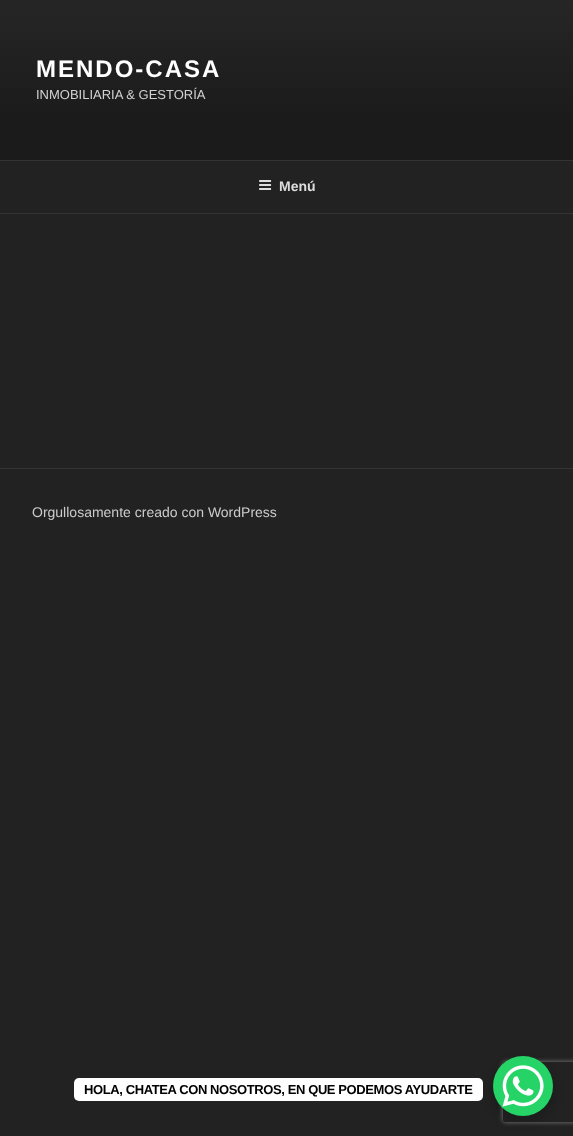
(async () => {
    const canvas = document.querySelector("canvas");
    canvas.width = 573;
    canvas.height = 1136;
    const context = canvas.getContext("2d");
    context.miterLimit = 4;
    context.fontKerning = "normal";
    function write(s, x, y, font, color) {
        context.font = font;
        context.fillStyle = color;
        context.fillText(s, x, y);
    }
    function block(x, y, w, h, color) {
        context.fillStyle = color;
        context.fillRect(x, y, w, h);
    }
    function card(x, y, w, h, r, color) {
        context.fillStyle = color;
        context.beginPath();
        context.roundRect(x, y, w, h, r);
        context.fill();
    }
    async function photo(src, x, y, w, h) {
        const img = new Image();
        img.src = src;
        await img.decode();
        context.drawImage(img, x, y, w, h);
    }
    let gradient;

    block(0, 0, 573, 1136, "rgb(34, 34, 34)");
    gradient = context.createLinearGradient(287, 0, 287, 160);
    gradient.addColorStop(0, "rgb(38, 38, 38)");
    gradient.addColorStop(0.75, "rgb(27, 27, 27)");
    gradient.addColorStop(1, "rgb(27, 27, 27)");
    context.fillStyle = gradient;
    context.fillRect(0, 0, 573, 160);
    context.letterSpacing = "2px";
    write("MENDO-CASA", 36, 77, "bold 24px Liberation Sans", "rgb(255, 255, 255)");
    context.letterSpacing = "0px";
    write("INMOBILIARIA & GESTORÍA", 36, 99, "13px Liberation Sans", "rgb(210, 210, 210)");
    block(0, 160, 573, 1, "rgb(51, 51, 51)");
    block(0, 213, 573, 1, "rgb(51, 51, 51)");
    await photo("media/1.png", 259, 180, 13, 10);
    write("Menú", 279, 191, "bold 14px Liberation Sans", "rgb(221, 221, 221)");
    block(0, 468, 573, 1, "rgb(51, 51, 51)");
    write("Orgullosamente creado con WordPress", 32, 517, "14px Liberation Sans", "rgb(204, 204, 204)");
    context.fillStyle = "rgba(0, 0, 0, 0.15)";
    context.filter = "blur(4px)";
    context.beginPath();
    context.roundRect(491, 1060, 64, 64, 32);
    context.fill();
    context.filter = "none";
    card(74, 1078, 409, 23, 5, "rgb(255, 255, 255)");
    context.letterSpacing = "-0.4px";
    write("HOLA, CHATEA CON NOSOTROS, EN QUE PODEMOS AYUDARTE", 84, 1094, "bold 13px Liberation Sans", "rgb(0, 0, 0)");
    context.save();
    context.beginPath();
    context.moveTo(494, 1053);
    context.lineTo(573, 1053);
    context.lineTo(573, 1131);
    context.lineTo(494, 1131);
    context.closePath();
    context.moveTo(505, 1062);
    context.lineTo(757, 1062);
    context.bezierCurveTo(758, 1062, 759, 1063, 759, 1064);
    context.lineTo(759, 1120);
    context.bezierCurveTo(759, 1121, 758, 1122, 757, 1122);
    context.lineTo(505, 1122);
    context.bezierCurveTo(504, 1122, 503, 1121, 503, 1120);
    context.lineTo(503, 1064);
    context.bezierCurveTo(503, 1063, 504, 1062, 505, 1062);
    context.closePath();
    context.clip("evenodd");
    context.fillStyle = "rgb(128, 128, 128)";
    context.filter = "blur(2.5px)";
    context.beginPath();
    context.roundRect(503, 1062, 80, 60, 2);
    context.fill();
    context.filter = "none";
    context.restore();
    context.fillStyle = "rgb(37, 211, 102)";
    context.beginPath();
    context.arc(523, 1086, 30, 0, Math.PI * 2);
    context.fill();
    await photo("media/2.png", 502, 1065, 42, 42);
})();
